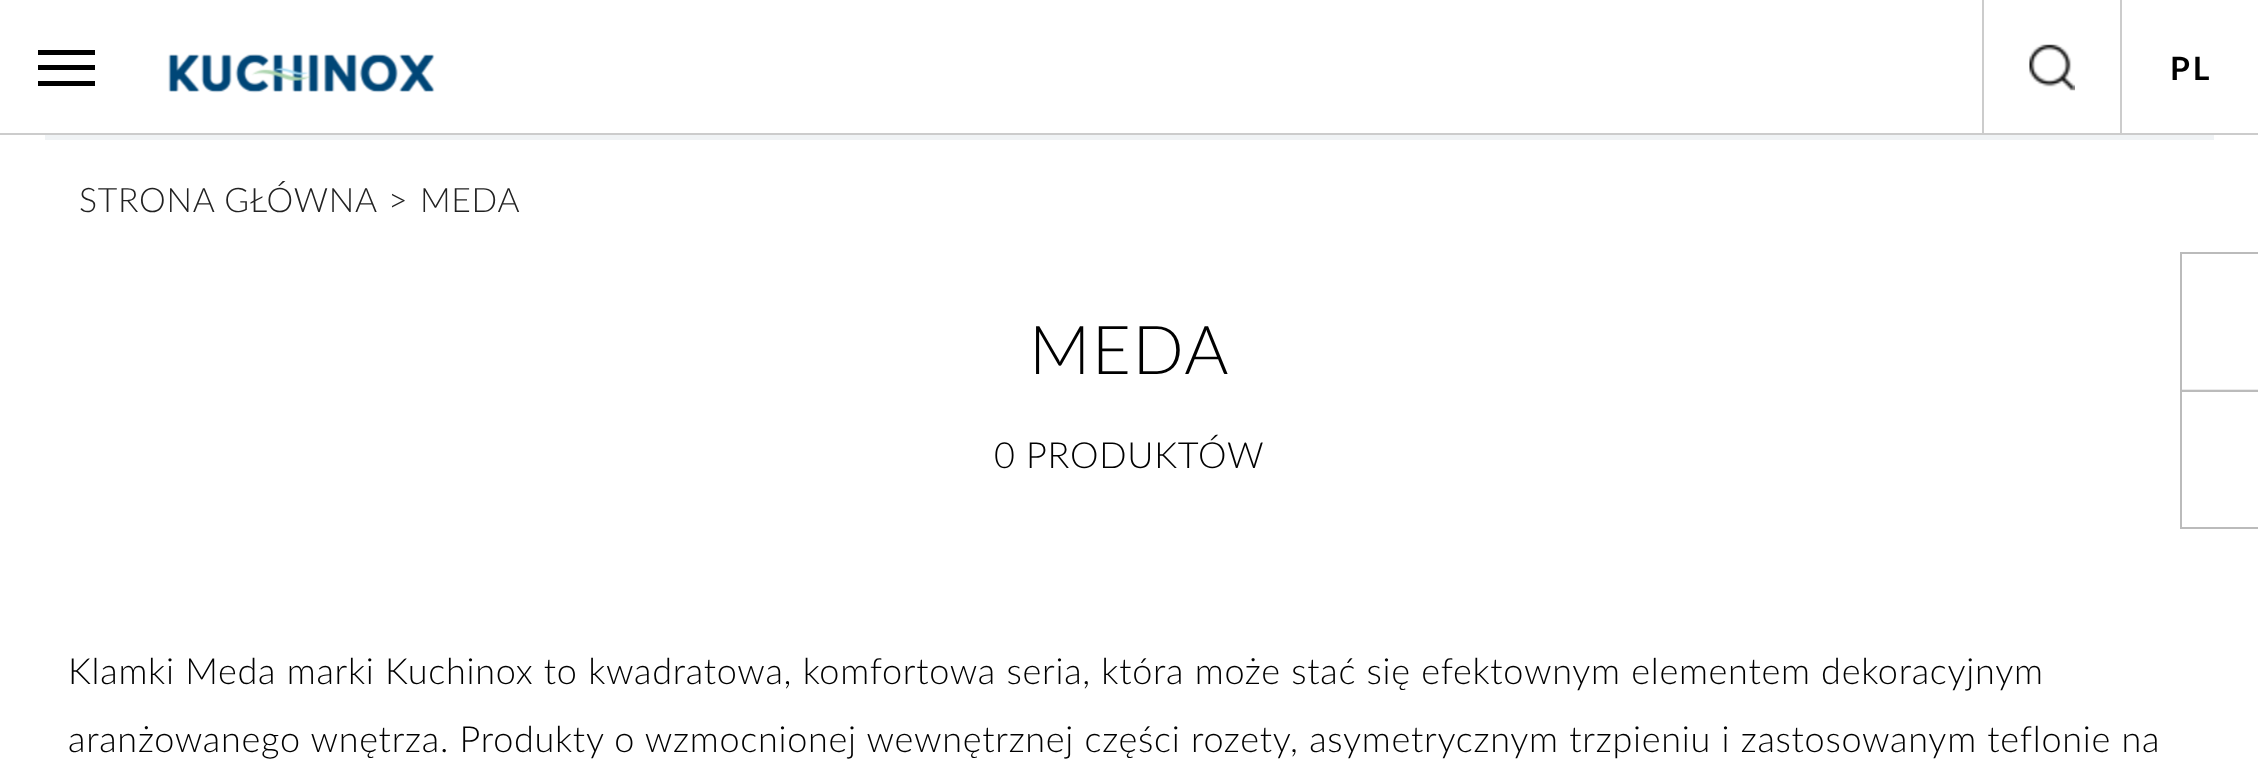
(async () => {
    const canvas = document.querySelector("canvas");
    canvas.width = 2258;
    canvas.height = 767;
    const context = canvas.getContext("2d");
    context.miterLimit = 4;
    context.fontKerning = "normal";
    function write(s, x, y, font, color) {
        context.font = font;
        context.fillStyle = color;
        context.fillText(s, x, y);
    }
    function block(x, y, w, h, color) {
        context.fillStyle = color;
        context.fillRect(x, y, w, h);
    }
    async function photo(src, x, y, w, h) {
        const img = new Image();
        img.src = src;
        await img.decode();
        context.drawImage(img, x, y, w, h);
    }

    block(0, 0, 2258, 767, "rgb(255, 255, 255)");
    block(0, 133, 2258, 2, "rgb(204, 204, 204)");
    block(38, 50, 57, 5, "rgb(0, 0, 0)");
    block(38, 65, 57, 5, "rgb(0, 0, 0)");
    block(38, 81, 57, 5, "rgb(0, 0, 0)");
    await photo("media/1.png", 168, 54, 267, 39);
    block(1982, 0, 2, 133, "rgb(204, 204, 204)");
    await photo("media/2.png", 2029, 44, 46, 47);
    block(2120, 0, 2, 133, "rgb(204, 204, 204)");
    context.letterSpacing = "3px";
    write("PL", 2170, 80, "bold 32px Lato", "rgb(0, 0, 0)");
    block(45, 135, 2169, 5, "rgb(240, 243, 245)");
    context.letterSpacing = "0.7px";
    write("STRONA GŁÓWNA", 79, 212, "300 33.75px Lato", "rgb(34, 34, 34)");
    write(">", 388, 212, "300 33.75px Lato", "rgb(34, 34, 34)");
    write("MEDA", 420, 212, "300 33.75px Lato", "rgb(34, 34, 34)");
    context.letterSpacing = "1.5px";
    write("MEDA", 1029, 374, "300 67.5px Lato", "rgb(0, 0, 0)");
    context.letterSpacing = "0.72px";
    write("0 PRODUKTÓW", 994, 468, "300 36px Lato", "rgb(0, 0, 0)");
    write("Klamki Meda marki Kuchinox to kwadratowa, komfortowa seria, która może stać się efektownym elementem dekoracyjnym", 68, 684, "300 36px Lato", "rgb(0, 0, 0)");
    write("aranżowanego wnętrza. Produkty o wzmocnionej wewnętrznej części rozety, asymetrycznym trzpieniu i zastosowanym teflonie na", 68, 752, "300 36px Lato", "rgb(0, 0, 0)");
    context.strokeStyle = "rgb(187, 187, 187)";
    context.lineWidth = 2;
    context.strokeRect(2181, 390, 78, 138);
    block(2182, 389, 76, 1, "rgba(255, 255, 255, 0.7)");
    context.strokeRect(2181, 253, 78, 138);
})();
